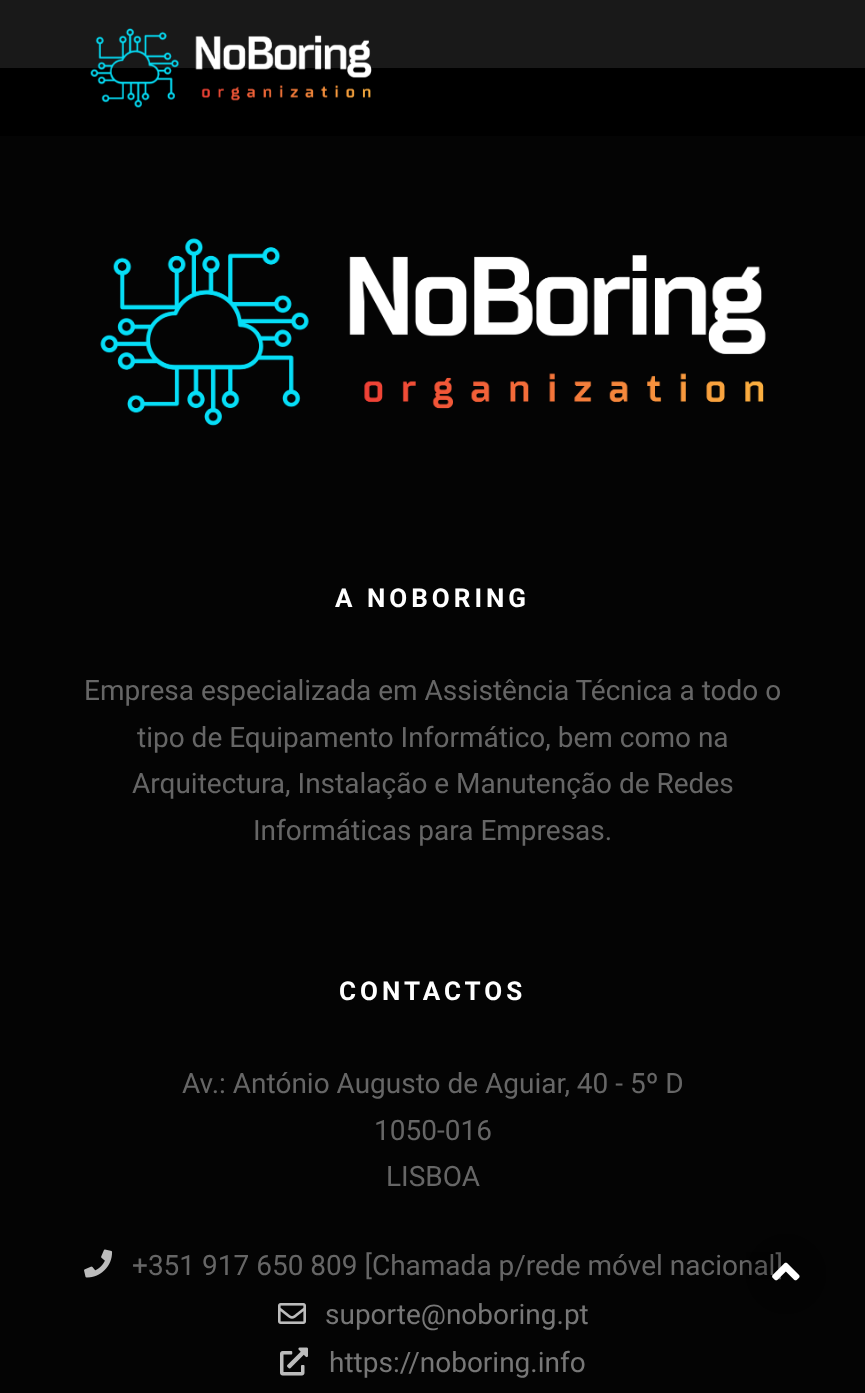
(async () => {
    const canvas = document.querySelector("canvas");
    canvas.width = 865;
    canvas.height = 1393;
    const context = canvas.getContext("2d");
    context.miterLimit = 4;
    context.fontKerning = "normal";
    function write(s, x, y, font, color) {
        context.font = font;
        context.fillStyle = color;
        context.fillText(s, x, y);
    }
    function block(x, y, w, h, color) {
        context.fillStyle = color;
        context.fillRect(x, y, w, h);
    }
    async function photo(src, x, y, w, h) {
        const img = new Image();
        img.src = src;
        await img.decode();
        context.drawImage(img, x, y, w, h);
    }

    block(0, 0, 865, 1393, "rgb(25, 25, 25)");
    block(0, 68, 865, 68, "rgb(0, 0, 0)");
    await photo("media/1.png", 90, 28, 282, 80);
    block(0, 136, 865, 1257, "rgb(4, 4, 4)");
    await photo("media/2.png", 100, 238, 666, 188);
    context.letterSpacing = "4px";
    write("A NOBORING", 335, 607, "bold 26px Roboto", "rgb(255, 255, 255)");
    context.letterSpacing = "0px";
    write("Empresa especializada em Assistência Técnica a todo o", 84, 700, "28px Roboto", "rgb(102, 102, 102)");
    write("tipo de Equipamento Informático, bem como na", 137, 747, "28px Roboto", "rgb(102, 102, 102)");
    write("Arquitectura, Instalação e Manutenção de Redes", 132, 793, "28px Roboto", "rgb(102, 102, 102)");
    write("Informáticas para Empresas.", 253, 840, "28px Roboto", "rgb(102, 102, 102)");
    context.letterSpacing = "4px";
    write("CONTACTOS", 339, 1000, "bold 26px Roboto", "rgb(255, 255, 255)");
    context.letterSpacing = "0px";
    write("Av.: António Augusto de Aguiar, 40 - 5º D", 182, 1093, "28px Roboto", "rgb(102, 102, 102)");
    write("1050-016", 374, 1140, "28px Roboto", "rgb(102, 102, 102)");
    write("LISBOA", 386, 1186, "28px Roboto", "rgb(102, 102, 102)");
    await photo("media/3.png", 84, 1249, 29, 29);
    write("+351 917 650 809 [Chamada p/rede móvel nacional]", 132, 1275, "28px Roboto", "rgb(102, 102, 102)");
    await photo("media/4.png", 278, 1303, 28, 21);
    write("suporte@noboring.pt", 325, 1324, "28px Roboto", "rgb(119, 119, 119)");
    await photo("media/5.png", 280, 1347, 28, 29);
    write("https://noboring.info", 329, 1372, "28px Roboto", "rgb(119, 119, 119)");
    context.fillStyle = "rgba(0, 0, 0, 0.1)";
    context.beginPath();
    context.arc(786, 1274, 40, 0, Math.PI * 2);
    context.fill();
    block(746, 1252, 34, 27, "rgba(0, 0, 0, 0.04)");
    await photo("media/6.png", 772, 1262, 28, 19);
})();
